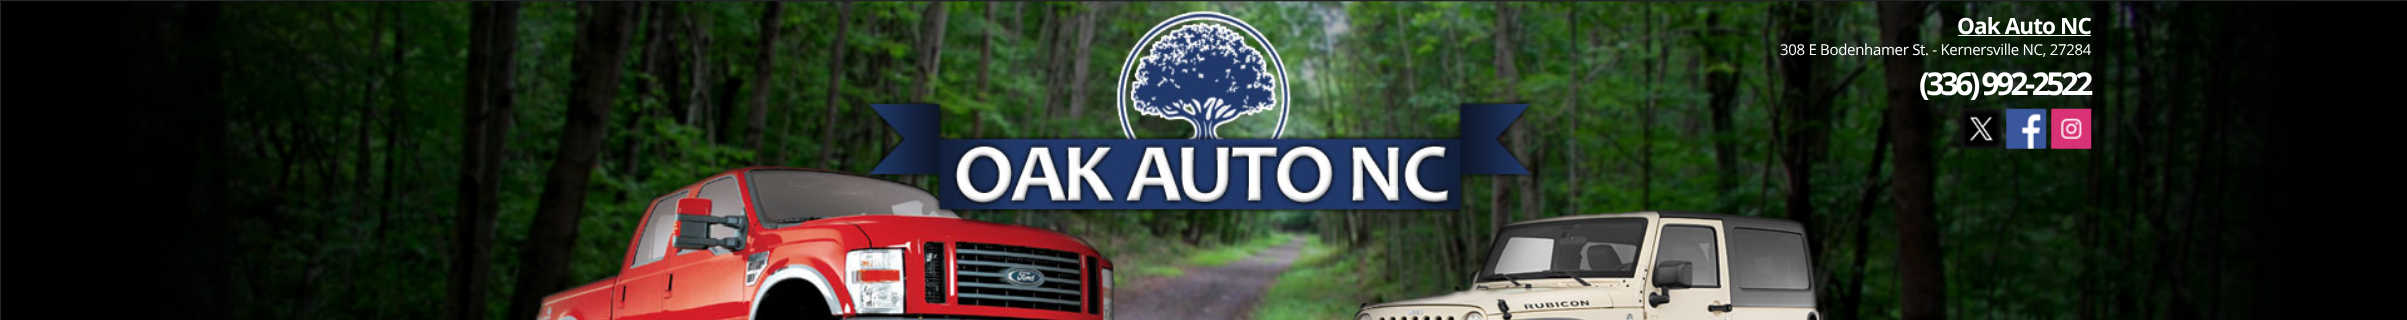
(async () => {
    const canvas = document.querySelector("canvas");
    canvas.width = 2407;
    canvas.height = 320;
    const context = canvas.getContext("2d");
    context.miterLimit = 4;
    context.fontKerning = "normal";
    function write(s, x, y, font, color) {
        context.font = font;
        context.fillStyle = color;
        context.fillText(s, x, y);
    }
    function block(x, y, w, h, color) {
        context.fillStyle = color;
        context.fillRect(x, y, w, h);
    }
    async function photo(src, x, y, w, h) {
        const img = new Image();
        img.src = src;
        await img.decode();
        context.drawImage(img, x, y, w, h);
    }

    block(0, 0, 2407, 320, "rgb(0, 0, 0)");
    context.strokeStyle = "rgb(35, 36, 37)";
    context.strokeRect(0.5, 0.5, 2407, 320);
    block(1, 1, 2405, 319, "rgb(18, 19, 20)");
    await photo("media/1.png", 1, 1, 2405, 319);
    context.letterSpacing = "-0.9px";
    write("Oak Auto NC", 1957, 34, "bold 22.5px Open Sans", "rgb(255, 255, 255)");
    block(1958, 35, 133, 1, "rgb(255, 255, 255)");
    context.letterSpacing = "-0.3px";
    write("308 E Bodenhamer St. - Kernersville NC, 27284", 1780, 55, "15px Open Sans", "rgb(255, 255, 255)");
    context.letterSpacing = "-3.5px";
    write("(336) 992-2522", 1919, 95, "bold 31.5px Open Sans", "rgb(255, 255, 255)");
    await photo("media/2.png", 1961, 108, 41, 41);
    await photo("media/3.png", 2006, 108, 41, 41);
    await photo("media/4.png", 2051, 108, 41, 41);
})();
